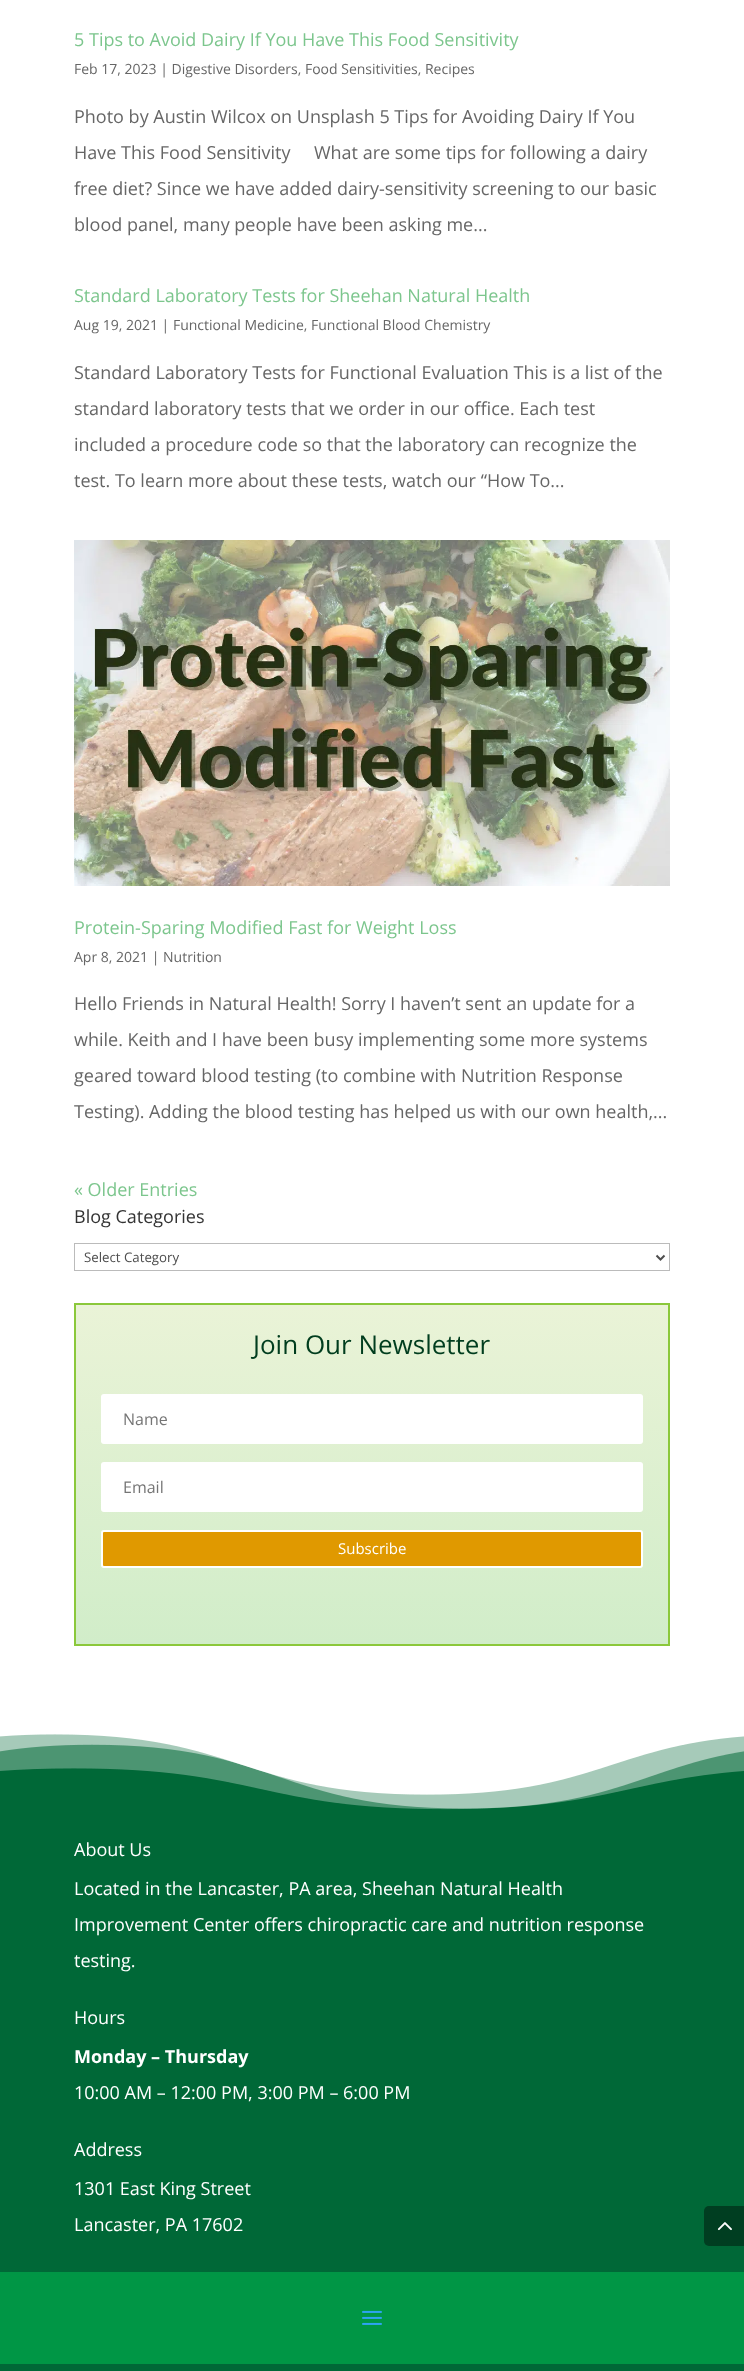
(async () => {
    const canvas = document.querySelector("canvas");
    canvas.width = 744;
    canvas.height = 2371;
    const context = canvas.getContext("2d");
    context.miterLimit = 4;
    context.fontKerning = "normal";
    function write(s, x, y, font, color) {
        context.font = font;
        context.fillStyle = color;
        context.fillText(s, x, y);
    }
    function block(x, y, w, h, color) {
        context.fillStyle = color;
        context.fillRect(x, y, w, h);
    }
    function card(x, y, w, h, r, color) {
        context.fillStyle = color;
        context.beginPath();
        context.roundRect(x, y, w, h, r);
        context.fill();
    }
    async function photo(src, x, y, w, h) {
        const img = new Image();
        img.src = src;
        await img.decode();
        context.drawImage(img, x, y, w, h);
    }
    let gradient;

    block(0, 0, 744, 2371, "rgb(255, 255, 255)");
    write("5 Tips to Avoid Dairy If You Have This Food Sensitivity", 74, 46, "18px Open Sans", "rgb(124, 198, 141)");
    write("Feb 17, 2023 | Digestive Disorders, Food Sensitivities, Recipes", 74, 74, "14px Open Sans", "rgb(102, 102, 102)");
    write("Photo by Austin Wilcox on Unsplash 5 Tips for Avoiding Dairy If You", 74, 123, "18px Open Sans", "rgb(102, 102, 102)");
    write("Have This Food Sensitivity     What are some tips for following a dairy", 74, 159, "18px Open Sans", "rgb(102, 102, 102)");
    write("free diet? Since we have added dairy-sensitivity screening to our basic", 74, 195, "18px Open Sans", "rgb(102, 102, 102)");
    write("blood panel, many people have been asking me...", 74, 231, "18px Open Sans", "rgb(102, 102, 102)");
    write("Standard Laboratory Tests for Sheehan Natural Health", 74, 302, "18px Open Sans", "rgb(124, 198, 141)");
    write("Aug 19, 2021 | Functional Medicine, Functional Blood Chemistry", 74, 330, "14px Open Sans", "rgb(102, 102, 102)");
    write("Standard Laboratory Tests for Functional Evaluation This is a list of the", 74, 379, "18px Open Sans", "rgb(102, 102, 102)");
    write("standard laboratory tests that we order in our office. Each test", 74, 415, "18px Open Sans", "rgb(102, 102, 102)");
    write("included a procedure code so that the laboratory can recognize the", 74, 451, "18px Open Sans", "rgb(102, 102, 102)");
    write("test. To learn more about these tests, watch our “How To...", 74, 487, "18px Open Sans", "rgb(102, 102, 102)");
    await photo("media/1.png", 74, 540, 596, 346);
    write("Protein-Sparing Modified Fast for Weight Loss", 74, 934, "18px Open Sans", "rgb(124, 198, 141)");
    write("Apr 8, 2021 | Nutrition", 74, 962, "14px Open Sans", "rgb(102, 102, 102)");
    write("Hello Friends in Natural Health! Sorry I haven’t sent an update for a", 74, 1010, "18px Open Sans", "rgb(102, 102, 102)");
    write("while. Keith and I have been busy implementing some more systems", 74, 1046, "18px Open Sans", "rgb(102, 102, 102)");
    write("geared toward blood testing (to combine with Nutrition Response", 74, 1082, "18px Open Sans", "rgb(102, 102, 102)");
    write("Testing). Adding the blood testing has helped us with our own health,...", 74, 1118, "18px Open Sans", "rgb(102, 102, 102)");
    write("« Older Entries", 74, 1196, "18px Open Sans", "rgb(124, 198, 141)");
    write("Blog Categories", 74, 1223, "18px Open Sans", "rgb(51, 51, 51)");
    context.strokeStyle = "rgb(187, 187, 187)";
    context.strokeRect(74.5, 1243.5, 595, 27);
    context.beginPath();
    context.moveTo(656.5, 1255.5);
    context.lineTo(660.5, 1259.5);
    context.lineTo(664.5, 1255.5);
    context.strokeStyle = "rgb(78, 78, 78)";
    context.lineWidth = 2;
    context.stroke();
    write("Select Category", 84, 1262, "13.25px Open Sans", "rgb(78, 78, 78)");
    gradient = context.createLinearGradient(372, 1305, 372, 1644);
    gradient.addColorStop(0, "rgb(234, 243, 215)");
    gradient.addColorStop(1, "rgb(209, 237, 201)");
    context.fillStyle = gradient;
    context.fillRect(76, 1305, 592, 339);
    context.strokeStyle = "rgb(139, 200, 59)";
    context.strokeRect(75, 1304, 594, 341);
    write("Join Our Newsletter", 253, 1354, "26px Open Sans", "rgb(0, 61, 30)");
    card(101, 1394, 542, 50, 3, "rgb(255, 255, 255)");
    write("Name", 123, 1425, "16px Open Sans", "rgb(117, 117, 117)");
    card(101, 1462, 542, 50, 3, "rgb(255, 255, 255)");
    write("Email", 123, 1493, "16px Open Sans", "rgb(117, 117, 117)");
    context.fillStyle = "rgb(224, 153, 0)";
    context.beginPath();
    context.roundRect(102, 1531, 540, 36, 2);
    context.fill();
    context.strokeStyle = "rgb(255, 255, 255)";
    context.stroke();
    write("Subscribe", 338, 1554, "15px Open Sans", "rgb(255, 255, 255)");
    block(0, 1734, 744, 637, "rgb(0, 104, 55)");
    await photo("media/2.png", 0, 1734, 744, 76);
    write("About Us", 74, 1856, "18px Open Sans", "rgb(255, 255, 255)");
    write("Located in the Lancaster, PA area, Sheehan Natural Health", 74, 1895, "18px Open Sans", "rgb(255, 255, 255)");
    write("Improvement Center offers chiropractic care and nutrition response", 74, 1931, "18px Open Sans", "rgb(255, 255, 255)");
    write("testing.", 74, 1967, "18px Open Sans", "rgb(255, 255, 255)");
    write("Hours", 74, 2024, "18px Open Sans", "rgb(255, 255, 255)");
    write("Monday – Thursday", 74, 2063, "bold 18px Open Sans", "rgb(255, 255, 255)");
    write("10:00 AM – 12:00 PM, 3:00 PM – 6:00 PM", 74, 2099, "18px Open Sans", "rgb(255, 255, 255)");
    write("Address", 74, 2156, "18px Open Sans", "rgb(255, 255, 255)");
    write("1301 East King Street", 74, 2195, "18px Open Sans", "rgb(255, 255, 255)");
    write("Lancaster, PA 17602", 74, 2231, "18px Open Sans", "rgb(255, 255, 255)");
    block(0, 2272, 744, 92, "rgb(0, 150, 69)");
    await photo("media/3.png", 362, 2310, 20, 15);
    context.fillStyle = "rgb(0, 62, 33)";
    context.beginPath();
    context.roundRect(704, 2206, 40, 40, [5, 0, 0, 5]);
    context.fill();
    await photo("media/4.png", 717, 2222, 15, 9);
})();
